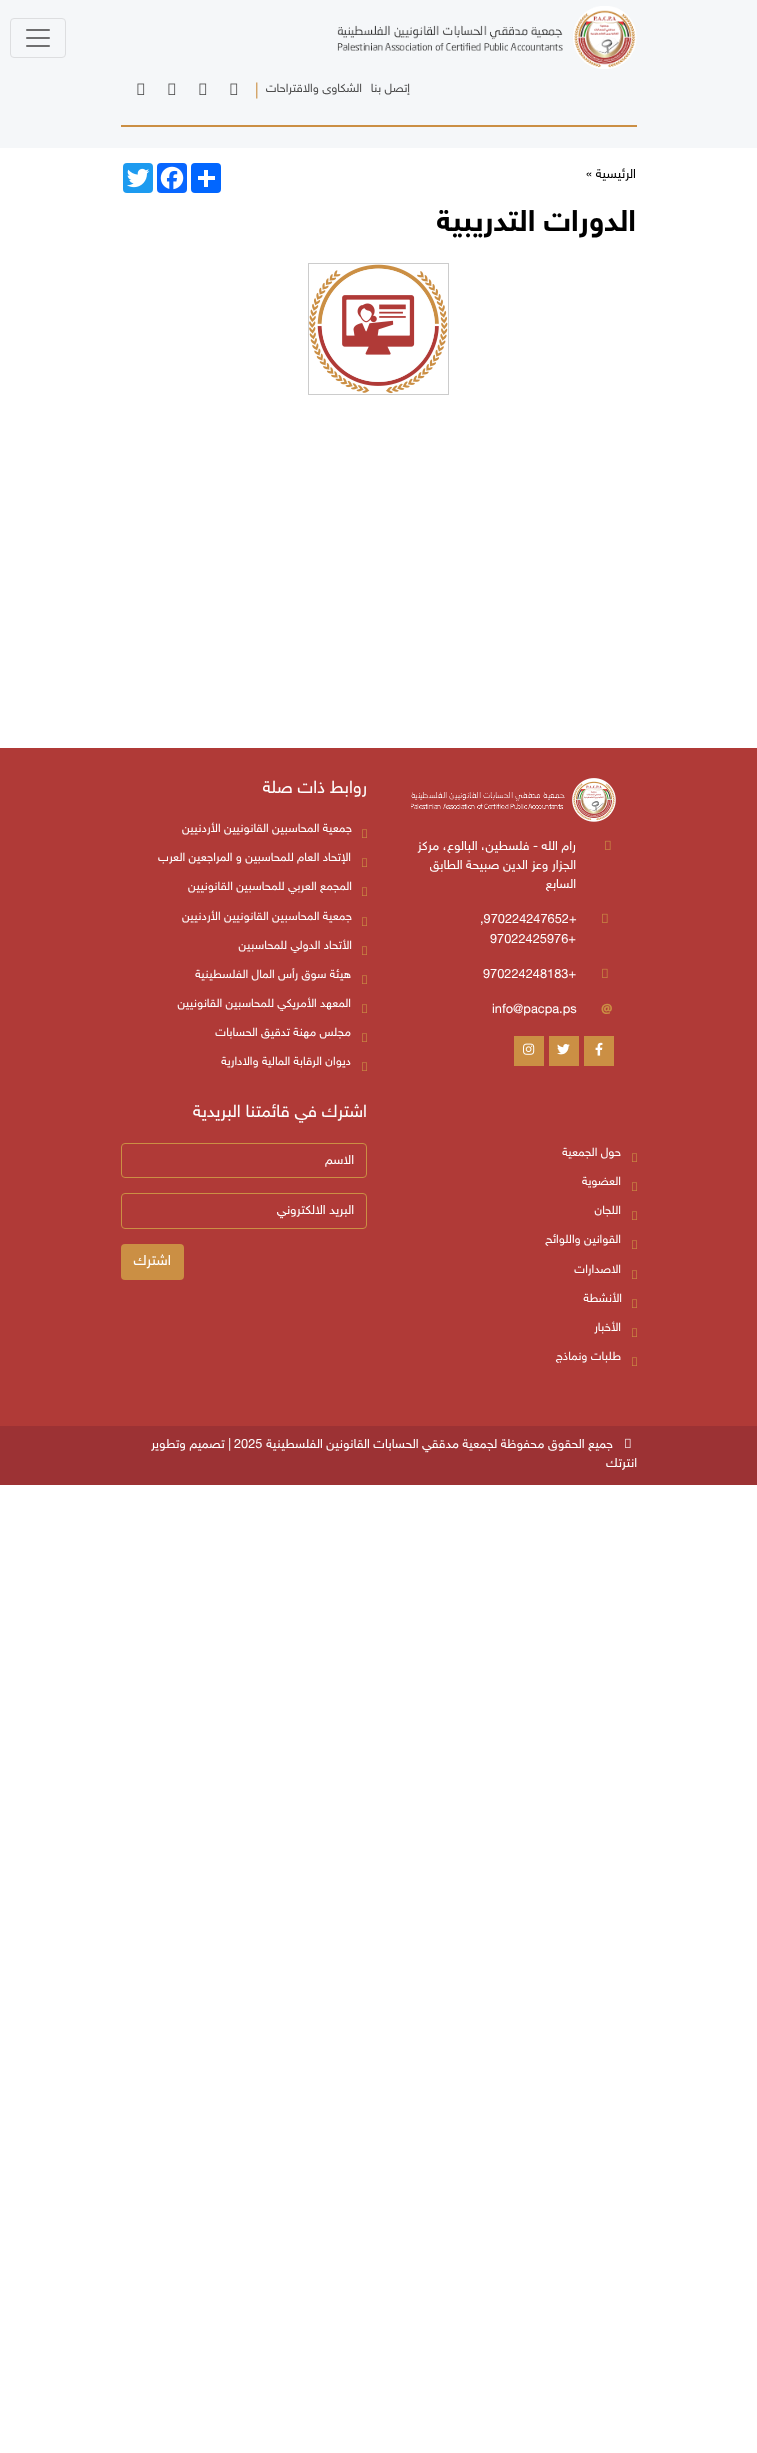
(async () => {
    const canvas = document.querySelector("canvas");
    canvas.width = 757;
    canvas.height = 2453;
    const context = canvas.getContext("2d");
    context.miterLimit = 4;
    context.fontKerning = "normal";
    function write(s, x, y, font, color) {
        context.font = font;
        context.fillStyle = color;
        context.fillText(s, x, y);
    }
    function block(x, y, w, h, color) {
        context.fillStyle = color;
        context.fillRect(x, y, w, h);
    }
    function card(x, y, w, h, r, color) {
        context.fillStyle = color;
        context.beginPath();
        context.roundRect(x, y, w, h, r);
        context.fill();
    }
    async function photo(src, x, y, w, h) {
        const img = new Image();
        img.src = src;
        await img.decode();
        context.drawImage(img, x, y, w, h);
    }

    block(0, 0, 757, 2453, "rgb(255, 255, 255)");
    block(0, 0, 757, 148, "rgb(245, 247, 249)");
    block(121, 125, 516, 2, "rgb(203, 143, 68)");
    await photo("media/1.png", 337, 6, 300, 63);
    context.beginPath();
    context.roundRect(10.5, 18.5, 55, 39, 3.5);
    context.strokeStyle = "rgb(221, 222, 224)";
    context.stroke();
    await photo("media/2.png", 26, 29, 24, 18);
    context.direction = "rtl";
    write("إتصل بنا", 410, 92, "12px 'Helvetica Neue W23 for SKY'", "rgb(77, 77, 77)");
    write("الشكاوى والاقتراحات", 362, 92, "12px 'Helvetica Neue W23 for SKY'", "rgb(77, 77, 77)");
    context.direction = "ltr";
    write("|", 255, 95, "16px 'Helvetica Neue W23 for SKY'", "rgb(203, 143, 68)");
    await photo("media/3.png", 230, 83, 8, 12);
    await photo("media/3.png", 199, 83, 8, 12);
    await photo("media/3.png", 168, 83, 8, 12);
    await photo("media/3.png", 137, 83, 8, 12);
    context.direction = "rtl";
    write("الرئيسية »", 636, 178, "13px 'Helvetica Neue W23 for SKY'", "rgb(0, 0, 0)");
    card(191, 163, 30, 30, 4, "rgb(1, 102, 255)");
    block(204, 170, 4, 17, "rgb(255, 255, 255)");
    block(198, 176, 17, 4, "rgb(255, 255, 255)");
    card(157, 163, 30, 30, 4, "rgb(8, 102, 255)");
    await photo("media/4.png", 160, 166, 24, 24);
    card(123, 163, 30, 30, 4, "rgb(29, 155, 240)");
    await photo("media/5.png", 127, 168, 23, 20);
    write("الدورات التدريبية", 636, 231, "bold 30px 'Helvetica Neue W23 for SKY'", "rgb(0, 0, 0)");
    context.strokeStyle = "rgb(204, 204, 204)";
    context.strokeRect(308.5, 263.5, 140, 131);
    await photo("media/6.png", 309, 264, 139, 130);
    block(0, 748, 757, 678, "rgb(176, 58, 55)");
    await photo("media/7.png", 411, 778, 205, 44);
    await photo("media/8.png", 605, 840, 6, 10);
    write("رام الله - فلسطين، البالوع، مركز", 576, 850, "12.8px 'Helvetica Neue W23 for SKY'", "rgb(255, 255, 255)");
    write("الجزار وعز الدين صبيحة الطابق", 576, 869, "12.8px 'Helvetica Neue W23 for SKY'", "rgb(255, 255, 255)");
    write("السابع", 576, 888, "12.8px 'Helvetica Neue W23 for SKY'", "rgb(255, 255, 255)");
    await photo("media/8.png", 602, 913, 6, 10);
    context.direction = "ltr";
    write(",970224247652+", 480, 923, "12.8px 'Helvetica Neue W23 for SKY'", "rgb(255, 255, 255)");
    write("97022425976+", 490, 943, "12.8px 'Helvetica Neue W23 for SKY'", "rgb(255, 255, 255)");
    await photo("media/8.png", 602, 968, 6, 10);
    write("970224248183+", 483, 978, "12.8px 'Helvetica Neue W23 for SKY'", "rgb(255, 255, 255)");
    write("@", 601, 1013, "900 12.8px Noto Sans", "rgb(203, 143, 68)");
    write("info@pacpa.ps", 492, 1013, "12.8px 'Helvetica Neue W23 for SKY'", "rgb(255, 255, 255)");
    block(584, 1036, 30, 30, "rgb(203, 143, 68)");
    await photo("media/9.png", 595, 1042, 8, 14);
    block(549, 1036, 30, 30, "rgb(203, 143, 68)");
    await photo("media/10.png", 557, 1044, 13, 11);
    block(514, 1036, 30, 30, "rgb(203, 143, 68)");
    await photo("media/11.png", 523, 1043, 12, 12);
    context.direction = "rtl";
    write("روابط ذات صلة", 367, 793, "17.5px 'Helvetica Neue W23 for SKY'", "rgb(255, 255, 255)");
    await photo("media/12.png", 362, 829, 5, 9);
    write("جمعية المحاسبين القانونيين الأردنيين", 352, 832, "12px 'Helvetica Neue W23 for SKY'", "rgb(255, 255, 255)");
    await photo("media/12.png", 362, 858, 5, 9);
    write("الإتحاد العام للمحاسبين و المراجعين العرب", 351, 861, "12px 'Helvetica Neue W23 for SKY'", "rgb(255, 255, 255)");
    await photo("media/12.png", 362, 887, 5, 9);
    write("المجمع العربي للمحاسبين القانونيين", 352, 890, "12px 'Helvetica Neue W23 for SKY'", "rgb(255, 255, 255)");
    await photo("media/12.png", 362, 917, 5, 9);
    write("جمعية المحاسبين القانونيين الأردنيين", 352, 920, "12px 'Helvetica Neue W23 for SKY'", "rgb(255, 255, 255)");
    await photo("media/12.png", 362, 946, 5, 9);
    write("الأتحاد الدولي للمحاسبين", 352, 949, "12px 'Helvetica Neue W23 for SKY'", "rgb(255, 255, 255)");
    await photo("media/12.png", 362, 975, 5, 9);
    write("هيئة سوق رأس المال الفلسطينية", 351, 978, "12px 'Helvetica Neue W23 for SKY'", "rgb(255, 255, 255)");
    await photo("media/12.png", 362, 1004, 5, 9);
    write("المعهد الأمريكي للمحاسبين القانونيين", 351, 1007, "12px 'Helvetica Neue W23 for SKY'", "rgb(255, 255, 255)");
    await photo("media/12.png", 362, 1033, 5, 9);
    write("مجلس مهنة تدقيق الحسابات", 351, 1036, "12px 'Helvetica Neue W23 for SKY'", "rgb(255, 255, 255)");
    await photo("media/12.png", 362, 1062, 5, 9);
    write("ديوان الرقابة المالية والادارية", 351, 1065, "12px 'Helvetica Neue W23 for SKY'", "rgb(255, 255, 255)");
    await photo("media/12.png", 632, 1153, 5, 9);
    write("حول الجمعية", 621, 1156, "12px 'Helvetica Neue W23 for SKY'", "rgb(255, 255, 255)");
    await photo("media/12.png", 632, 1182, 5, 9);
    write("العضوية", 621, 1185, "12px 'Helvetica Neue W23 for SKY'", "rgb(255, 255, 255)");
    await photo("media/12.png", 632, 1211, 5, 9);
    write("اللجان", 621, 1214, "12px 'Helvetica Neue W23 for SKY'", "rgb(255, 255, 255)");
    await photo("media/12.png", 632, 1240, 5, 9);
    write("القوانين واللوائح", 621, 1243, "12px 'Helvetica Neue W23 for SKY'", "rgb(255, 255, 255)");
    await photo("media/12.png", 632, 1270, 5, 9);
    write("الاصدارات", 621, 1273, "12px 'Helvetica Neue W23 for SKY'", "rgb(255, 255, 255)");
    write("الأنشطة", 622, 1302, "12px 'Helvetica Neue W23 for SKY'", "rgb(255, 255, 255)");
    await photo("media/12.png", 632, 1299, 5, 9);
    await photo("media/12.png", 632, 1328, 5, 9);
    write("الأخبار", 621, 1331, "12px 'Helvetica Neue W23 for SKY'", "rgb(255, 255, 255)");
    await photo("media/12.png", 632, 1357, 5, 9);
    write("طلبات ونماذج", 621, 1360, "12px 'Helvetica Neue W23 for SKY'", "rgb(255, 255, 255)");
    write("اشترك في قائمتنا البريدية", 367, 1117, "17.5px 'Helvetica Neue W23 for SKY'", "rgb(255, 255, 255)");
    context.beginPath();
    context.roundRect(121.5, 1143.5, 245, 34, 3.5);
    context.strokeStyle = "rgb(203, 143, 68)";
    context.stroke();
    write("الاسم", 354, 1164, "12.8px 'Helvetica Neue W23 for SKY'", "rgb(255, 255, 255)");
    context.beginPath();
    context.roundRect(121.5, 1193.5, 245, 35, 3.5);
    context.stroke();
    write("البريد الالكتروني", 354, 1214, "12.8px 'Helvetica Neue W23 for SKY'", "rgb(255, 255, 255)");
    card(121, 1244, 63, 36, 4, "rgb(203, 143, 68)");
    write("اشترك", 171, 1265, "14.5px 'Helvetica Neue W23 for SKY'", "rgb(255, 255, 255)");
    block(0, 1426, 757, 59, "rgb(156, 50, 52)");
    await photo("media/13.png", 625, 1438, 6, 10);
    write("جميع الحقوق محفوظة لجمعية مدققي الحسابات القانونين الفلسطينية", 613, 1448, "12.8px 'Helvetica Neue W23 for SKY'", "rgb(255, 255, 255)");
    context.direction = "ltr";
    write("2025", 234, 1448, "12.8px 'Helvetica Neue W23 for SKY'", "rgb(255, 255, 255)");
    context.direction = "rtl";
    write("| تصميم وتطوير", 231, 1448, "12.8px 'Helvetica Neue W23 for SKY'", "rgb(255, 255, 255)");
    write("انترتك", 637, 1467, "12.8px 'Helvetica Neue W23 for SKY'", "rgb(255, 255, 255)");
})();
